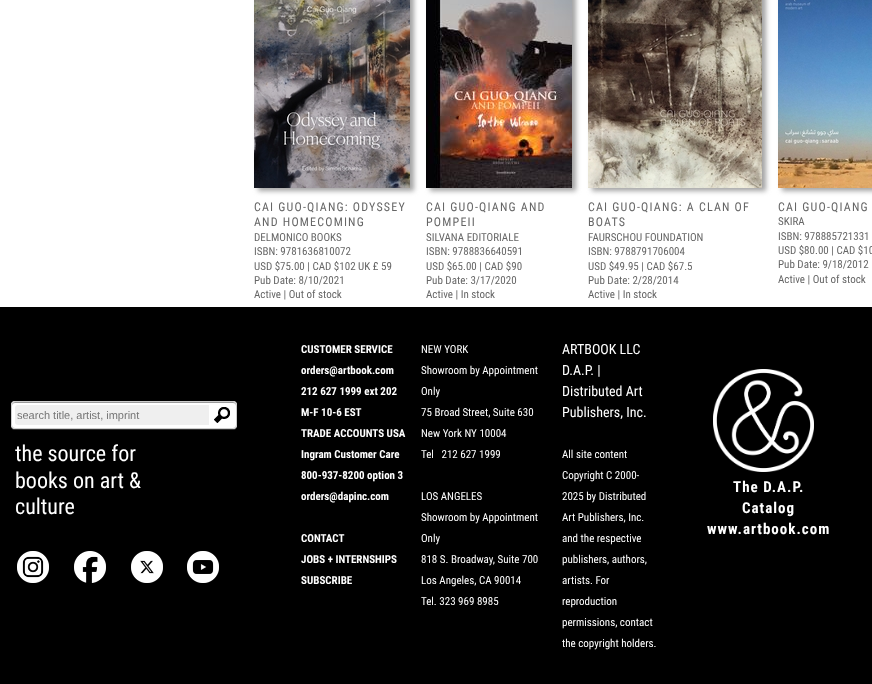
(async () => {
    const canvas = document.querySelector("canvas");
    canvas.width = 872;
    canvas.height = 684;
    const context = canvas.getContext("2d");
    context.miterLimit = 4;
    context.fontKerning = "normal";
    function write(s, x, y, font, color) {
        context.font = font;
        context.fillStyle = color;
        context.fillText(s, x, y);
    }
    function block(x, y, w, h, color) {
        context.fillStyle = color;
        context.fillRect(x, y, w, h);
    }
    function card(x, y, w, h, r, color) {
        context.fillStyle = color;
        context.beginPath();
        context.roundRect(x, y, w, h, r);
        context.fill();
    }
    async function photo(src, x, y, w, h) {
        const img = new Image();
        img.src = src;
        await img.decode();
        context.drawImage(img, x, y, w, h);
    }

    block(0, 0, 872, 684, "rgb(255, 255, 255)");
    context.fillStyle = "rgb(163, 163, 163)";
    context.filter = "blur(2.5px)";
    context.beginPath();
    context.rect(258, -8, 156, 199);
    context.fill();
    context.filter = "none";
    await photo("media/1.png", 254, 0, 156, 188);
    context.letterSpacing = "1.2px";
    write("CAI GUO-QIANG: ODYSSEY", 254, 211, "12px Roboto Condensed", "rgb(102, 102, 102)");
    write("AND HOMECOMING", 254, 226, "12px Roboto Condensed", "rgb(102, 102, 102)");
    context.letterSpacing = "0px";
    write("DELMONICO BOOKS", 254, 241, "11px Roboto Condensed", "rgb(102, 102, 102)");
    write("ISBN: 9781636810072", 254, 255, "11px Roboto Condensed", "rgb(102, 102, 102)");
    write("USD $75.00 | CAD $102 UK £ 59", 254, 270, "11px Roboto Condensed", "rgb(102, 102, 102)");
    write("Pub Date: 8/10/2021", 254, 284, "11px Roboto Condensed", "rgb(102, 102, 102)");
    write("Active | Out of stock", 254, 298, "11px Roboto Condensed", "rgb(102, 102, 102)");
    context.fillStyle = "rgb(163, 163, 163)";
    context.filter = "blur(2.5px)";
    context.beginPath();
    context.rect(430, -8, 146, 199);
    context.fill();
    context.filter = "none";
    await photo("media/2.png", 426, 0, 146, 188);
    context.letterSpacing = "1.2px";
    write("CAI GUO-QIANG AND", 426, 211, "12px Roboto Condensed", "rgb(102, 102, 102)");
    write("POMPEII", 426, 226, "12px Roboto Condensed", "rgb(102, 102, 102)");
    context.letterSpacing = "0px";
    write("SILVANA EDITORIALE", 426, 241, "11px Roboto Condensed", "rgb(102, 102, 102)");
    write("ISBN: 9788836640591", 426, 255, "11px Roboto Condensed", "rgb(102, 102, 102)");
    write("USD $65.00 | CAD $90", 426, 270, "11px Roboto Condensed", "rgb(102, 102, 102)");
    write("Pub Date: 3/17/2020", 426, 284, "11px Roboto Condensed", "rgb(102, 102, 102)");
    write("Active | In stock", 426, 298, "11px Roboto Condensed", "rgb(102, 102, 102)");
    context.fillStyle = "rgb(163, 163, 163)";
    context.filter = "blur(2.5px)";
    context.beginPath();
    context.rect(592, -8, 174, 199);
    context.fill();
    context.filter = "none";
    await photo("media/3.png", 588, 0, 174, 188);
    context.letterSpacing = "1.2px";
    write("CAI GUO-QIANG: A CLAN OF", 588, 211, "12px Roboto Condensed", "rgb(102, 102, 102)");
    write("BOATS", 588, 226, "12px Roboto Condensed", "rgb(102, 102, 102)");
    context.letterSpacing = "0px";
    write("FAURSCHOU FOUNDATION", 588, 241, "11px Roboto Condensed", "rgb(102, 102, 102)");
    write("ISBN: 9788791706004", 588, 255, "11px Roboto Condensed", "rgb(102, 102, 102)");
    write("USD $49.95 | CAD $67.5", 588, 270, "11px Roboto Condensed", "rgb(102, 102, 102)");
    write("Pub Date: 2/28/2014", 588, 284, "11px Roboto Condensed", "rgb(102, 102, 102)");
    write("Active | In stock", 588, 298, "11px Roboto Condensed", "rgb(102, 102, 102)");
    context.fillStyle = "rgb(163, 163, 163)";
    context.filter = "blur(2.5px)";
    context.beginPath();
    context.rect(782, -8, 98, 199);
    context.fill();
    context.filter = "none";
    await photo("media/4.png", 778, 0, 94, 188);
    context.letterSpacing = "1.2px";
    write("CAI GUO-QIANG", 778, 211, "12px Roboto Condensed", "rgb(102, 102, 102)");
    context.letterSpacing = "0px";
    write("SKIRA", 778, 225, "11px Roboto Condensed", "rgb(102, 102, 102)");
    write("ISBN: 978885721331", 778, 240, "11px Roboto Condensed", "rgb(102, 102, 102)");
    write("USD $80.00 | CAD $10", 778, 254, "11px Roboto Condensed", "rgb(102, 102, 102)");
    write("Pub Date: 9/18/2012", 778, 268, "11px Roboto Condensed", "rgb(102, 102, 102)");
    write("Active | Out of stock", 778, 283, "11px Roboto Condensed", "rgb(102, 102, 102)");
    block(0, 307, 872, 377, "rgb(0, 0, 0)");
    context.fillStyle = "rgb(51, 51, 51)";
    context.beginPath();
    context.moveTo(11, 425);
    context.bezierCurveTo(11, 428, 12, 430, 15, 430);
    context.lineTo(233, 430);
    context.bezierCurveTo(236, 430, 237, 428, 237, 425);
    context.bezierCurveTo(237, 427, 235, 429, 233, 429);
    context.lineTo(15, 429);
    context.bezierCurveTo(13, 429, 11, 427, 11, 425);
    context.closePath();
    context.fill();
    card(11, 401, 226, 28, 4, "rgb(255, 255, 255)");
    context.fillStyle = "rgb(153, 153, 153)";
    context.beginPath();
    context.moveTo(15, 403);
    context.lineTo(233, 403);
    context.bezierCurveTo(235, 403, 236, 404, 236, 406);
    context.lineTo(236, 405);
    context.bezierCurveTo(236, 403, 235, 402, 233, 402);
    context.lineTo(15, 402);
    context.bezierCurveTo(13, 402, 12, 403, 12, 405);
    context.lineTo(12, 406);
    context.bezierCurveTo(12, 404, 13, 403, 15, 403);
    context.closePath();
    context.fill();
    context.beginPath();
    context.roundRect(11.5, 401.5, 225, 27, 3.5);
    context.strokeStyle = "rgb(204, 204, 204)";
    context.stroke();
    context.fillStyle = "rgb(239, 239, 239)";
    context.beginPath();
    context.roundRect(15, 405, 194, 20, [3, 0, 0, 3]);
    context.fill();
    write("search title, artist, imprint", 17, 419, "11px Liberation Sans", "rgb(117, 117, 117)");
    await photo("media/5.png", 214, 407, 16, 16);
    write("the source for", 15, 461, "22px Roboto Condensed", "rgb(255, 255, 255)");
    write("books on art &", 15, 488, "22px Roboto Condensed", "rgb(255, 255, 255)");
    write("culture", 15, 514, "22px Roboto Condensed", "rgb(255, 255, 255)");
    await photo("media/6.png", 17, 551, 32, 32);
    await photo("media/7.png", 74, 551, 32, 32);
    await photo("media/8.png", 131, 551, 32, 32);
    await photo("media/9.png", 187, 551, 32, 32);
    write("CUSTOMER SERVICE", 301, 353, "bold 11px Roboto Condensed", "rgb(255, 255, 255)");
    write("orders@artbook.com", 301, 374, "bold 11px Roboto Condensed", "rgb(255, 255, 255)");
    write("212 627 1999 ext 202", 301, 395, "bold 11px Roboto Condensed", "rgb(255, 255, 255)");
    write("M-F 10-6 EST", 301, 416, "bold 11px Roboto Condensed", "rgb(255, 255, 255)");
    write("TRADE ACCOUNTS USA", 301, 437, "bold 11px Roboto Condensed", "rgb(255, 255, 255)");
    write("Ingram Customer Care", 301, 458, "bold 11px Roboto Condensed", "rgb(255, 255, 255)");
    write("800-937-8200 option 3", 301, 479, "bold 11px Roboto Condensed", "rgb(255, 255, 255)");
    write("orders@dapinc.com", 301, 500, "bold 11px Roboto Condensed", "rgb(255, 255, 255)");
    write("CONTACT", 301, 542, "bold 11px Roboto Condensed", "rgb(255, 255, 255)");
    write("JOBS + INTERNSHIPS", 301, 563, "bold 11px Roboto Condensed", "rgb(255, 255, 255)");
    write("SUBSCRIBE", 301, 584, "bold 11px Roboto Condensed", "rgb(255, 255, 255)");
    write("NEW YORK", 421, 353, "11px Roboto Condensed", "rgb(255, 255, 255)");
    write("Showroom by Appointment", 421, 374, "11px Roboto Condensed", "rgb(255, 255, 255)");
    write("Only", 421, 395, "11px Roboto Condensed", "rgb(255, 255, 255)");
    write("75 Broad Street, Suite 630", 421, 416, "11px Roboto Condensed", "rgb(255, 255, 255)");
    write("New York NY 10004", 421, 437, "11px Roboto Condensed", "rgb(255, 255, 255)");
    write("Tel   212 627 1999", 421, 458, "11px Roboto Condensed", "rgb(255, 255, 255)");
    write("LOS ANGELES", 421, 500, "11px Roboto Condensed", "rgb(255, 255, 255)");
    write("Showroom by Appointment", 421, 521, "11px Roboto Condensed", "rgb(255, 255, 255)");
    write("Only", 421, 542, "11px Roboto Condensed", "rgb(255, 255, 255)");
    write("818 S. Broadway, Suite 700", 421, 563, "11px Roboto Condensed", "rgb(255, 255, 255)");
    write("Los Angeles, CA 90014", 421, 584, "11px Roboto Condensed", "rgb(255, 255, 255)");
    write("Tel. 323 969 8985", 421, 605, "11px Roboto Condensed", "rgb(255, 255, 255)");
    write("ARTBOOK LLC", 562, 354, "14px Roboto Condensed", "rgb(255, 255, 255)");
    write("D.A.P. |", 562, 375, "14px Roboto Condensed", "rgb(255, 255, 255)");
    write("Distributed Art", 562, 396, "14px Roboto Condensed", "rgb(255, 255, 255)");
    write("Publishers, Inc.", 562, 417, "14px Roboto Condensed", "rgb(255, 255, 255)");
    write("All site content", 562, 458, "11px Roboto Condensed", "rgb(255, 255, 255)");
    write("Copyright C 2000-", 562, 479, "11px Roboto Condensed", "rgb(255, 255, 255)");
    write("2025 by Distributed", 562, 500, "11px Roboto Condensed", "rgb(255, 255, 255)");
    write("Art Publishers, Inc.", 562, 521, "11px Roboto Condensed", "rgb(255, 255, 255)");
    write("and the respective", 562, 542, "11px Roboto Condensed", "rgb(255, 255, 255)");
    write("publishers, authors,", 562, 563, "11px Roboto Condensed", "rgb(255, 255, 255)");
    write("artists. For", 562, 584, "11px Roboto Condensed", "rgb(255, 255, 255)");
    write("reproduction", 562, 605, "11px Roboto Condensed", "rgb(255, 255, 255)");
    write("permissions, contact", 562, 626, "11px Roboto Condensed", "rgb(255, 255, 255)");
    write("the copyright holders.", 562, 647, "11px Roboto Condensed", "rgb(255, 255, 255)");
    await photo("media/10.png", 713, 369, 101, 103);
    context.letterSpacing = "1px";
    write("The D.A.P.", 733, 492, "bold 15px Roboto Condensed", "rgb(255, 255, 255)");
    write("Catalog", 742, 513, "bold 15px Roboto Condensed", "rgb(255, 255, 255)");
    write("www.artbook.com", 707, 534, "bold 15px Roboto Condensed", "rgb(255, 255, 255)");
})();
